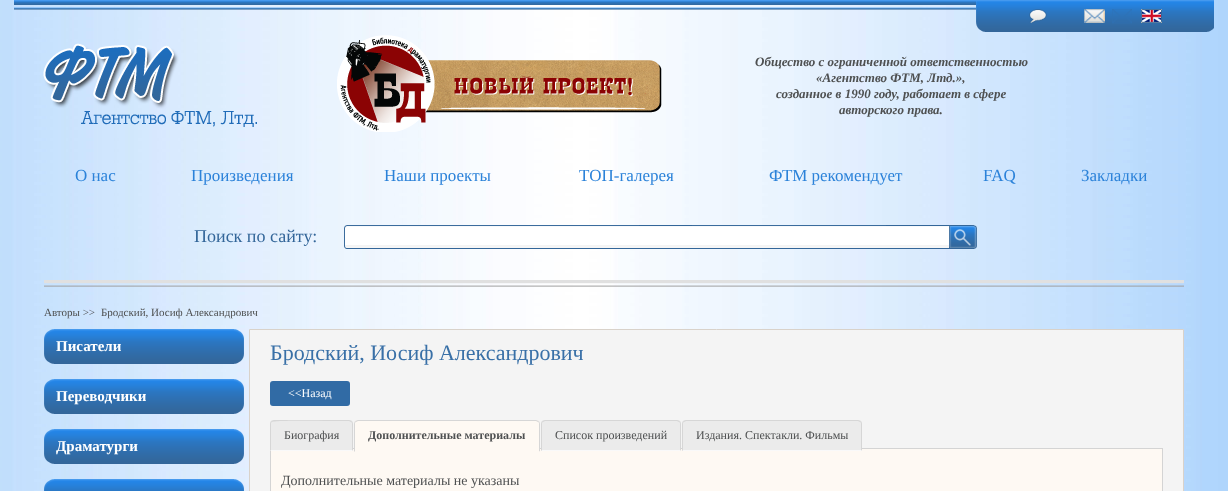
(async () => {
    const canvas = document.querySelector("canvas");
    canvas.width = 1228;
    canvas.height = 491;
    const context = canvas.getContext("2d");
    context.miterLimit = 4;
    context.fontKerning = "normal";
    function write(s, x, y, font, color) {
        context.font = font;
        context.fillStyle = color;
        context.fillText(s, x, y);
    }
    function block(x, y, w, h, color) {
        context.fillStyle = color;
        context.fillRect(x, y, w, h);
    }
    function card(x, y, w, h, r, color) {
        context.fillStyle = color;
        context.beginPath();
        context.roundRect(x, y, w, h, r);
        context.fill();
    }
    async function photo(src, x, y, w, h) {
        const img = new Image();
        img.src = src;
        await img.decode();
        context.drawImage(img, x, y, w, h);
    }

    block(0, 0, 1228, 491, "rgb(255, 255, 255)");
    await photo("media/1.png", 0, 0, 1228, 491);
    await photo("media/2.png", 14, 0, 1200, 10);
    await photo("media/3.png", 976, 1, 238, 31);
    await photo("media/4.png", 1029, 9, 18, 14);
    await photo("media/5.png", 1084, 9, 21, 14);
    await photo("media/6.png", 1141, 9, 21, 14);
    await photo("media/7.png", 43, 43, 214, 84);
    await photo("media/8.png", 337, 35, 325, 97);
    write("Общество с ограниченной ответственностью", 755, 66, "italic bold 13px Liberation Serif", "rgb(78, 80, 81)");
    write("«Агентство ФТМ, Лтд.»,", 816, 82, "italic bold 13px Liberation Serif", "rgb(78, 80, 81)");
    write("созданное в 1990 году, работает в сфере", 776, 98, "italic bold 13px Liberation Serif", "rgb(78, 80, 81)");
    write("авторского права.", 839, 114, "italic bold 13px Liberation Serif", "rgb(78, 80, 81)");
    write("О нас", 75, 181, "17px Liberation Serif", "rgb(43, 130, 217)");
    write("Произведения", 191, 181, "17px Liberation Serif", "rgb(43, 130, 217)");
    write("Наши проекты", 384, 181, "17px Liberation Serif", "rgb(43, 130, 217)");
    write("ТОП-галерея", 579, 181, "17px Liberation Serif", "rgb(43, 130, 217)");
    write("ФТМ рекомендует", 769, 181, "17px Liberation Serif", "rgb(43, 130, 217)");
    write("FAQ", 983, 181, "17px Liberation Serif", "rgb(43, 130, 217)");
    write("Закладки", 1081, 181, "17px Liberation Serif", "rgb(43, 130, 217)");
    write("Поиск по сайту:", 194, 242, "18px Liberation Serif", "rgb(51, 102, 153)");
    await photo("media/9.png", 344, 225, 605, 24);
    block(345, 228, 604, 17, "rgb(255, 255, 255)");
    await photo("media/10.png", 949, 225, 28, 24);
    await photo("media/11.png", 44, 280, 1140, 7);
    write("Авторы >>", 44, 316, "11px Liberation Serif", "rgb(78, 80, 81)");
    write("Бродский, Иосиф Александрович", 101, 316, "11px Liberation Serif", "rgb(78, 80, 81)");
    await photo("media/12.png", 44, 329, 12, 35);
    await photo("media/13.png", 56, 329, 176, 35);
    write("Писатели", 56, 351, "bold 15px Liberation Serif", "rgb(255, 255, 255)");
    await photo("media/14.png", 232, 329, 12, 35);
    await photo("media/15.png", 44, 379, 12, 35);
    await photo("media/13.png", 56, 379, 176, 35);
    write("Переводчики", 56, 401, "bold 15px Liberation Serif", "rgb(255, 255, 255)");
    await photo("media/16.png", 232, 379, 12, 35);
    await photo("media/17.png", 44, 429, 12, 35);
    await photo("media/13.png", 56, 429, 176, 35);
    write("Драматурги", 56, 451, "bold 15px Liberation Serif", "rgb(255, 255, 255)");
    await photo("media/18.png", 232, 429, 12, 35);
    await photo("media/19.png", 44, 479, 12, 12);
    await photo("media/20.png", 56, 479, 176, 12);
    await photo("media/21.png", 232, 479, 12, 12);
    context.fillStyle = "rgb(244, 244, 244)";
    context.beginPath();
    context.rect(249.5, 329.5, 934, 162);
    context.fill();
    context.strokeStyle = "rgb(217, 210, 202)";
    context.stroke();
    write("Бродский, Иосиф Александрович", 270, 360, "22px Liberation Serif", "rgb(57, 112, 167)");
    card(270, 381, 80, 25, 3, "rgb(49, 107, 165)");
    write("<<Назад", 288, 397, "12px Liberation Serif", "rgb(255, 255, 255)");
    block(271, 449, 891, 42, "rgb(254, 249, 243)");
    block(353, 448, 810, 1, "rgb(212, 212, 212)");
    block(270, 449, 1, 42, "rgb(212, 212, 212)");
    context.fillStyle = "rgb(235, 235, 235)";
    context.beginPath();
    context.roundRect(270, 420, 83, 31, [4, 4, 0, 0]);
    context.fill();
    context.fillStyle = "rgb(214, 214, 214)";
    context.beginPath();
    context.moveTo(274, 420);
    context.lineTo(271, 421);
    context.lineTo(272, 422);
    context.bezierCurveTo(274, 420, 329, 421, 336, 421);
    context.lineTo(349, 421);
    context.lineTo(351, 422);
    context.lineTo(352, 421);
    context.lineTo(349, 420);
    context.closePath();
    context.fill();
    context.beginPath();
    context.moveTo(353, 451);
    context.lineTo(353, 424);
    context.bezierCurveTo(353, 423, 352.5, 422, 352, 421);
    context.lineTo(351, 422);
    context.bezierCurveTo(352, 422, 352, 423, 352, 424);
    context.lineTo(352, 450);
    context.closePath();
    context.fill();
    context.fillStyle = "rgb(249, 249, 249)";
    context.beginPath();
    context.moveTo(353, 451);
    context.lineTo(352, 450);
    context.lineTo(271, 450);
    context.lineTo(270, 451);
    context.closePath();
    context.fill();
    context.fillStyle = "rgb(214, 214, 214)";
    context.beginPath();
    context.moveTo(270, 451);
    context.lineTo(271, 450);
    context.lineTo(271, 424);
    context.bezierCurveTo(271, 423, 271, 422, 272, 422);
    context.lineTo(271, 421);
    context.bezierCurveTo(270.5, 422, 270, 423, 270, 424);
    context.closePath();
    context.fill();
    write("Биография", 284, 439, "12px Liberation Serif", "rgb(78, 80, 81)");
    context.fillStyle = "rgb(254, 249, 243)";
    context.beginPath();
    context.roundRect(354, 420, 186, 32, [4, 4, 0, 0]);
    context.fill();
    context.fillStyle = "rgb(214, 214, 214)";
    context.beginPath();
    context.moveTo(358, 420);
    context.lineTo(355, 421);
    context.lineTo(356, 422);
    context.lineTo(358, 421);
    context.lineTo(536, 421);
    context.lineTo(538, 422);
    context.lineTo(539, 421);
    context.lineTo(536, 420);
    context.closePath();
    context.fill();
    context.beginPath();
    context.moveTo(540, 452);
    context.lineTo(540, 424);
    context.bezierCurveTo(540, 423, 539.5, 422, 539, 421);
    context.lineTo(538, 422);
    context.bezierCurveTo(539, 422, 539, 423, 539, 424);
    context.lineTo(539, 451);
    context.closePath();
    context.fill();
    context.fillStyle = "rgb(254, 249, 243)";
    context.beginPath();
    context.moveTo(540, 452);
    context.lineTo(539, 451);
    context.lineTo(355, 451);
    context.lineTo(354, 452);
    context.closePath();
    context.fill();
    context.fillStyle = "rgb(214, 214, 214)";
    context.beginPath();
    context.moveTo(354, 452);
    context.lineTo(355, 451);
    context.lineTo(355, 424);
    context.bezierCurveTo(355, 423, 355, 422, 356, 422);
    context.lineTo(355, 421);
    context.bezierCurveTo(354.5, 422, 354, 423, 354, 424);
    context.closePath();
    context.fill();
    write("Дополнительные материалы", 368, 439, "bold 12px Liberation Serif", "rgb(78, 80, 81)");
    context.fillStyle = "rgb(235, 235, 235)";
    context.beginPath();
    context.roundRect(541, 420, 140, 31, [4, 4, 0, 0]);
    context.fill();
    context.fillStyle = "rgb(214, 214, 214)";
    context.beginPath();
    context.moveTo(545, 420);
    context.lineTo(542, 421);
    context.lineTo(543, 422);
    context.lineTo(545, 421);
    context.lineTo(677, 421);
    context.lineTo(679, 422);
    context.lineTo(680, 421);
    context.lineTo(677, 420);
    context.closePath();
    context.fill();
    context.beginPath();
    context.moveTo(681, 451);
    context.lineTo(681, 424);
    context.bezierCurveTo(681, 423, 680.5, 422, 680, 421);
    context.lineTo(679, 422);
    context.bezierCurveTo(680, 422, 680, 423, 680, 424);
    context.lineTo(680, 450);
    context.closePath();
    context.fill();
    context.fillStyle = "rgb(249, 249, 249)";
    context.beginPath();
    context.moveTo(681, 451);
    context.lineTo(680, 450);
    context.lineTo(542, 450);
    context.lineTo(541, 451);
    context.closePath();
    context.fill();
    context.fillStyle = "rgb(214, 214, 214)";
    context.beginPath();
    context.moveTo(541, 451);
    context.lineTo(542, 450);
    context.lineTo(542, 424);
    context.bezierCurveTo(542, 423, 542, 422, 543, 422);
    context.lineTo(542, 421);
    context.bezierCurveTo(541.5, 422, 541, 423, 541, 424);
    context.closePath();
    context.fill();
    write("Список произведений", 555, 439, "12px Liberation Serif", "rgb(78, 80, 81)");
    context.fillStyle = "rgb(235, 235, 235)";
    context.beginPath();
    context.roundRect(682, 420, 180, 31, [4, 4, 0, 0]);
    context.fill();
    context.fillStyle = "rgb(214, 214, 214)";
    context.beginPath();
    context.moveTo(686, 420);
    context.lineTo(683, 421);
    context.lineTo(684, 422);
    context.lineTo(686, 421);
    context.lineTo(858, 421);
    context.lineTo(860, 422);
    context.lineTo(861, 421);
    context.lineTo(858, 420);
    context.closePath();
    context.fill();
    context.beginPath();
    context.moveTo(862, 451);
    context.lineTo(862, 424);
    context.bezierCurveTo(862, 423, 861.5, 422, 861, 421);
    context.lineTo(860, 422);
    context.bezierCurveTo(861, 422, 861, 423, 861, 424);
    context.lineTo(861, 450);
    context.closePath();
    context.fill();
    context.fillStyle = "rgb(249, 249, 249)";
    context.beginPath();
    context.moveTo(862, 451);
    context.lineTo(861, 450);
    context.lineTo(683, 450);
    context.lineTo(682, 451);
    context.closePath();
    context.fill();
    context.fillStyle = "rgb(214, 214, 214)";
    context.beginPath();
    context.moveTo(682, 451);
    context.lineTo(683, 450);
    context.lineTo(683, 424);
    context.bezierCurveTo(683, 423, 683, 422, 684, 422);
    context.lineTo(683, 421);
    context.bezierCurveTo(682.5, 422, 682, 423, 682, 424);
    context.closePath();
    context.fill();
    write("Издания. Спектакли. Фильмы", 696, 439, "12px Liberation Serif", "rgb(78, 80, 81)");
    block(1162, 449, 1, 42, "rgb(212, 212, 212)");
    write("Дополнительные материалы не указаны", 281, 485, "14px Liberation Serif", "rgb(78, 80, 81)");
})();
